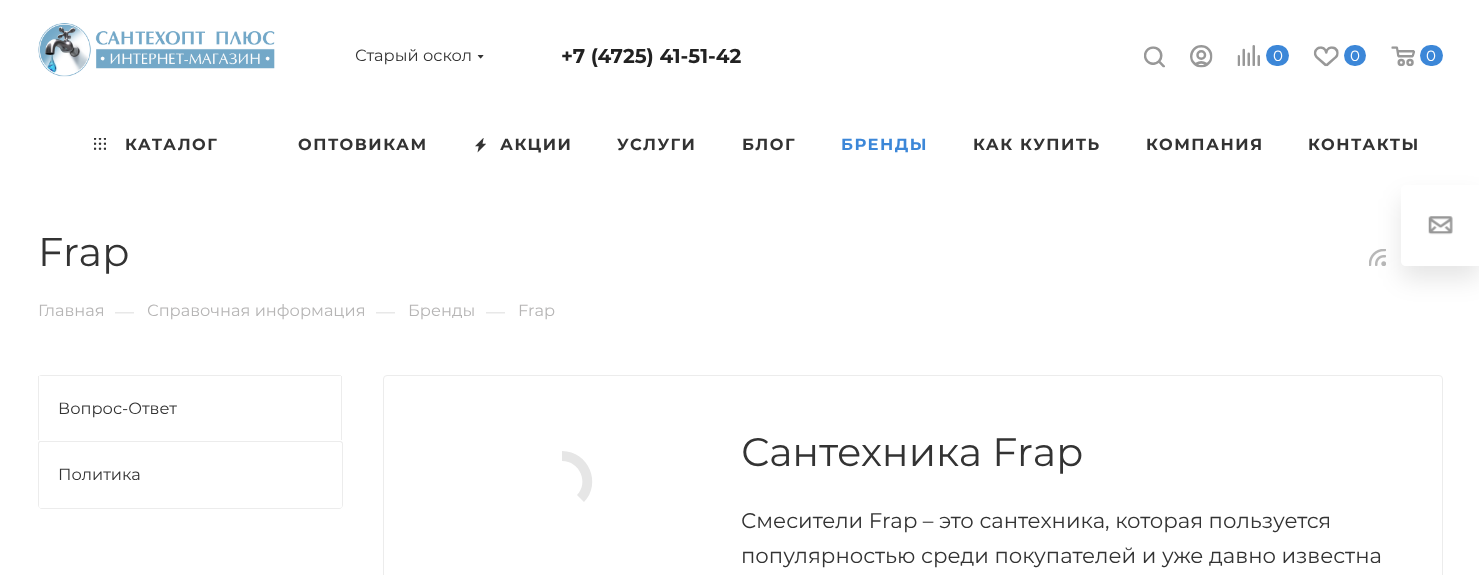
(async () => {
    const canvas = document.querySelector("canvas");
    canvas.width = 1479;
    canvas.height = 575;
    const context = canvas.getContext("2d");
    context.miterLimit = 4;
    context.fontKerning = "normal";
    function write(s, x, y, font, color) {
        context.font = font;
        context.fillStyle = color;
        context.fillText(s, x, y);
    }
    function block(x, y, w, h, color) {
        context.fillStyle = color;
        context.fillRect(x, y, w, h);
    }
    function card(x, y, w, h, r, color) {
        context.fillStyle = color;
        context.beginPath();
        context.roundRect(x, y, w, h, r);
        context.fill();
    }
    async function photo(src, x, y, w, h) {
        const img = new Image();
        img.src = src;
        await img.decode();
        context.drawImage(img, x, y, w, h);
    }

    block(0, 0, 1479, 575, "rgb(255, 255, 255)");
    await photo("media/1.png", 38, 23, 237, 54);
    write("Старый оскол", 355, 61, "16.25px Montserrat", "rgb(51, 51, 51)");
    await photo("media/2.png", 477, 55, 7, 4);
    write("+7 (4725) 41-51-42", 561, 63, "bold 20px Montserrat", "rgb(34, 34, 34)");
    await photo("media/3.png", 1144, 46, 21, 22);
    await photo("media/4.png", 1190, 45, 23, 23);
    await photo("media/5.png", 1237, 45, 23, 21);
    card(1266, 45, 23, 21, 10.5, "rgb(60, 135, 216)");
    write("0", 1273, 61, "15px Montserrat", "rgb(255, 255, 255)");
    await photo("media/6.png", 1313, 46, 26, 21);
    card(1344, 45, 22, 21, 10.5, "rgb(60, 135, 216)");
    write("0", 1350, 61, "15px Montserrat", "rgb(255, 255, 255)");
    await photo("media/7.png", 1391, 46, 24, 21);
    card(1420, 45, 23, 21, 10.5, "rgb(60, 135, 216)");
    write("0", 1426, 61, "15px Montserrat", "rgb(255, 255, 255)");
    await photo("media/8.png", 94, 138, 12, 12);
    context.letterSpacing = "1.5px";
    write("КАТАЛОГ", 125, 150, "bold 16.25px Montserrat", "rgb(51, 51, 51)");
    write("ОПТОВИКАМ", 298, 150, "bold 16.25px Montserrat", "rgb(51, 51, 51)");
    await photo("media/9.png", 475, 138, 11, 15);
    write("АКЦИИ", 500, 150, "bold 16.25px Montserrat", "rgb(51, 51, 51)");
    write("УСЛУГИ", 617, 150, "bold 16.25px Montserrat", "rgb(51, 51, 51)");
    write("БЛОГ", 742, 150, "bold 16.25px Montserrat", "rgb(51, 51, 51)");
    write("БРЕНДЫ", 841, 150, "bold 16.25px Montserrat", "rgb(60, 135, 216)");
    write("КАК КУПИТЬ", 973, 150, "bold 16.25px Montserrat", "rgb(51, 51, 51)");
    write("КОМПАНИЯ", 1146, 150, "bold 16.25px Montserrat", "rgb(51, 51, 51)");
    write("КОНТАКТЫ", 1308, 150, "bold 16.25px Montserrat", "rgb(51, 51, 51)");
    context.letterSpacing = "0px";
    write("Frap", 38, 266, "40px Montserrat", "rgb(51, 51, 51)");
    await photo("media/10.png", 1369, 249, 17, 17);
    write("Главная", 38, 316, "16.25px Montserrat", "rgb(182, 181, 181)");
    write("—", 115, 318, "19px Montserrat", "rgb(221, 221, 221)");
    write("Справочная информация", 147, 316, "16.25px Montserrat", "rgb(182, 181, 181)");
    write("—", 376, 318, "19px Montserrat", "rgb(221, 221, 221)");
    write("Бренды", 408, 316, "16.25px Montserrat", "rgb(182, 181, 181)");
    write("—", 486, 318, "19px Montserrat", "rgb(221, 221, 221)");
    write("Frap", 518, 316, "16.25px Montserrat", "rgb(182, 181, 181)");
    context.save();
    context.beginPath();
    context.roundRect(38, 375, 305, 134, 4);
    context.clip();
    block(39, 375, 302, 1, "rgb(236, 236, 236)");
    context.restore();
    block(341, 376, 1, 64, "rgb(236, 236, 236)");
    block(38, 376, 1, 64, "rgb(236, 236, 236)");
    write("Вопрос-Ответ", 58, 414, "16.25px Montserrat", "rgb(51, 51, 51)");
    context.fillStyle = "rgb(236, 236, 236)";
    context.beginPath();
    context.moveTo(40, 441);
    context.bezierCurveTo(39, 441, 38, 442, 38, 444);
    context.lineTo(38, 505);
    context.bezierCurveTo(38, 507, 40, 509, 42, 509);
    context.lineTo(339, 509);
    context.bezierCurveTo(341, 509, 343, 507, 343, 505);
    context.lineTo(343, 444);
    context.bezierCurveTo(343, 442, 342, 441, 340, 441);
    context.closePath();
    context.moveTo(40, 442);
    context.bezierCurveTo(40, 442, 39, 443, 39, 444);
    context.lineTo(39, 506);
    context.bezierCurveTo(39, 507, 40, 508, 40, 508);
    context.lineTo(340, 508);
    context.bezierCurveTo(341, 508, 342, 507, 342, 506);
    context.lineTo(342, 444);
    context.bezierCurveTo(342, 443, 341, 442, 340, 442);
    context.closePath();
    context.fill("evenodd");
    write("Политика", 58, 480, "16.25px Montserrat", "rgb(51, 51, 51)");
    context.beginPath();
    context.roundRect(383.5, 375.5, 1059, 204, 3.5);
    context.strokeStyle = "rgb(236, 236, 236)";
    context.stroke();
    context.fillStyle = "rgb(230, 230, 230)";
    context.beginPath();
    context.moveTo(562, 451);
    context.bezierCurveTo(589, 451, 602, 484, 584, 502);
    context.lineTo(577, 495);
    context.bezierCurveTo(589, 483, 580, 461, 562, 461);
    context.closePath();
    context.fill();
    write("Сантехника Frap", 741, 466, "39.75px Montserrat", "rgb(51, 51, 51)");
    write("Смесители Frap – это сантехника, которая пользуется", 741, 528, "21.25px Montserrat", "rgb(51, 51, 51)");
    write("популярностью среди покупателей и уже давно известна", 741, 563, "21.25px Montserrat", "rgb(51, 51, 51)");
    context.fillStyle = "rgba(0, 0, 0, 0.1)";
    context.filter = "blur(12.5px)";
    context.beginPath();
    context.roundRect(1401, 198, 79, 81, 5);
    context.fill();
    context.filter = "none";
    context.fillStyle = "rgb(255, 255, 255)";
    context.beginPath();
    context.moveTo(1406, 185);
    context.lineTo(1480, 185);
    context.lineTo(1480, 266);
    context.lineTo(1406, 266);
    context.bezierCurveTo(1403, 266, 1401, 264, 1401, 261);
    context.lineTo(1401, 190);
    context.bezierCurveTo(1401, 187, 1403, 185, 1406, 185);
    context.closePath();
    context.fill();
    await photo("media/11.png", 1428, 216, 25, 19);
})();
